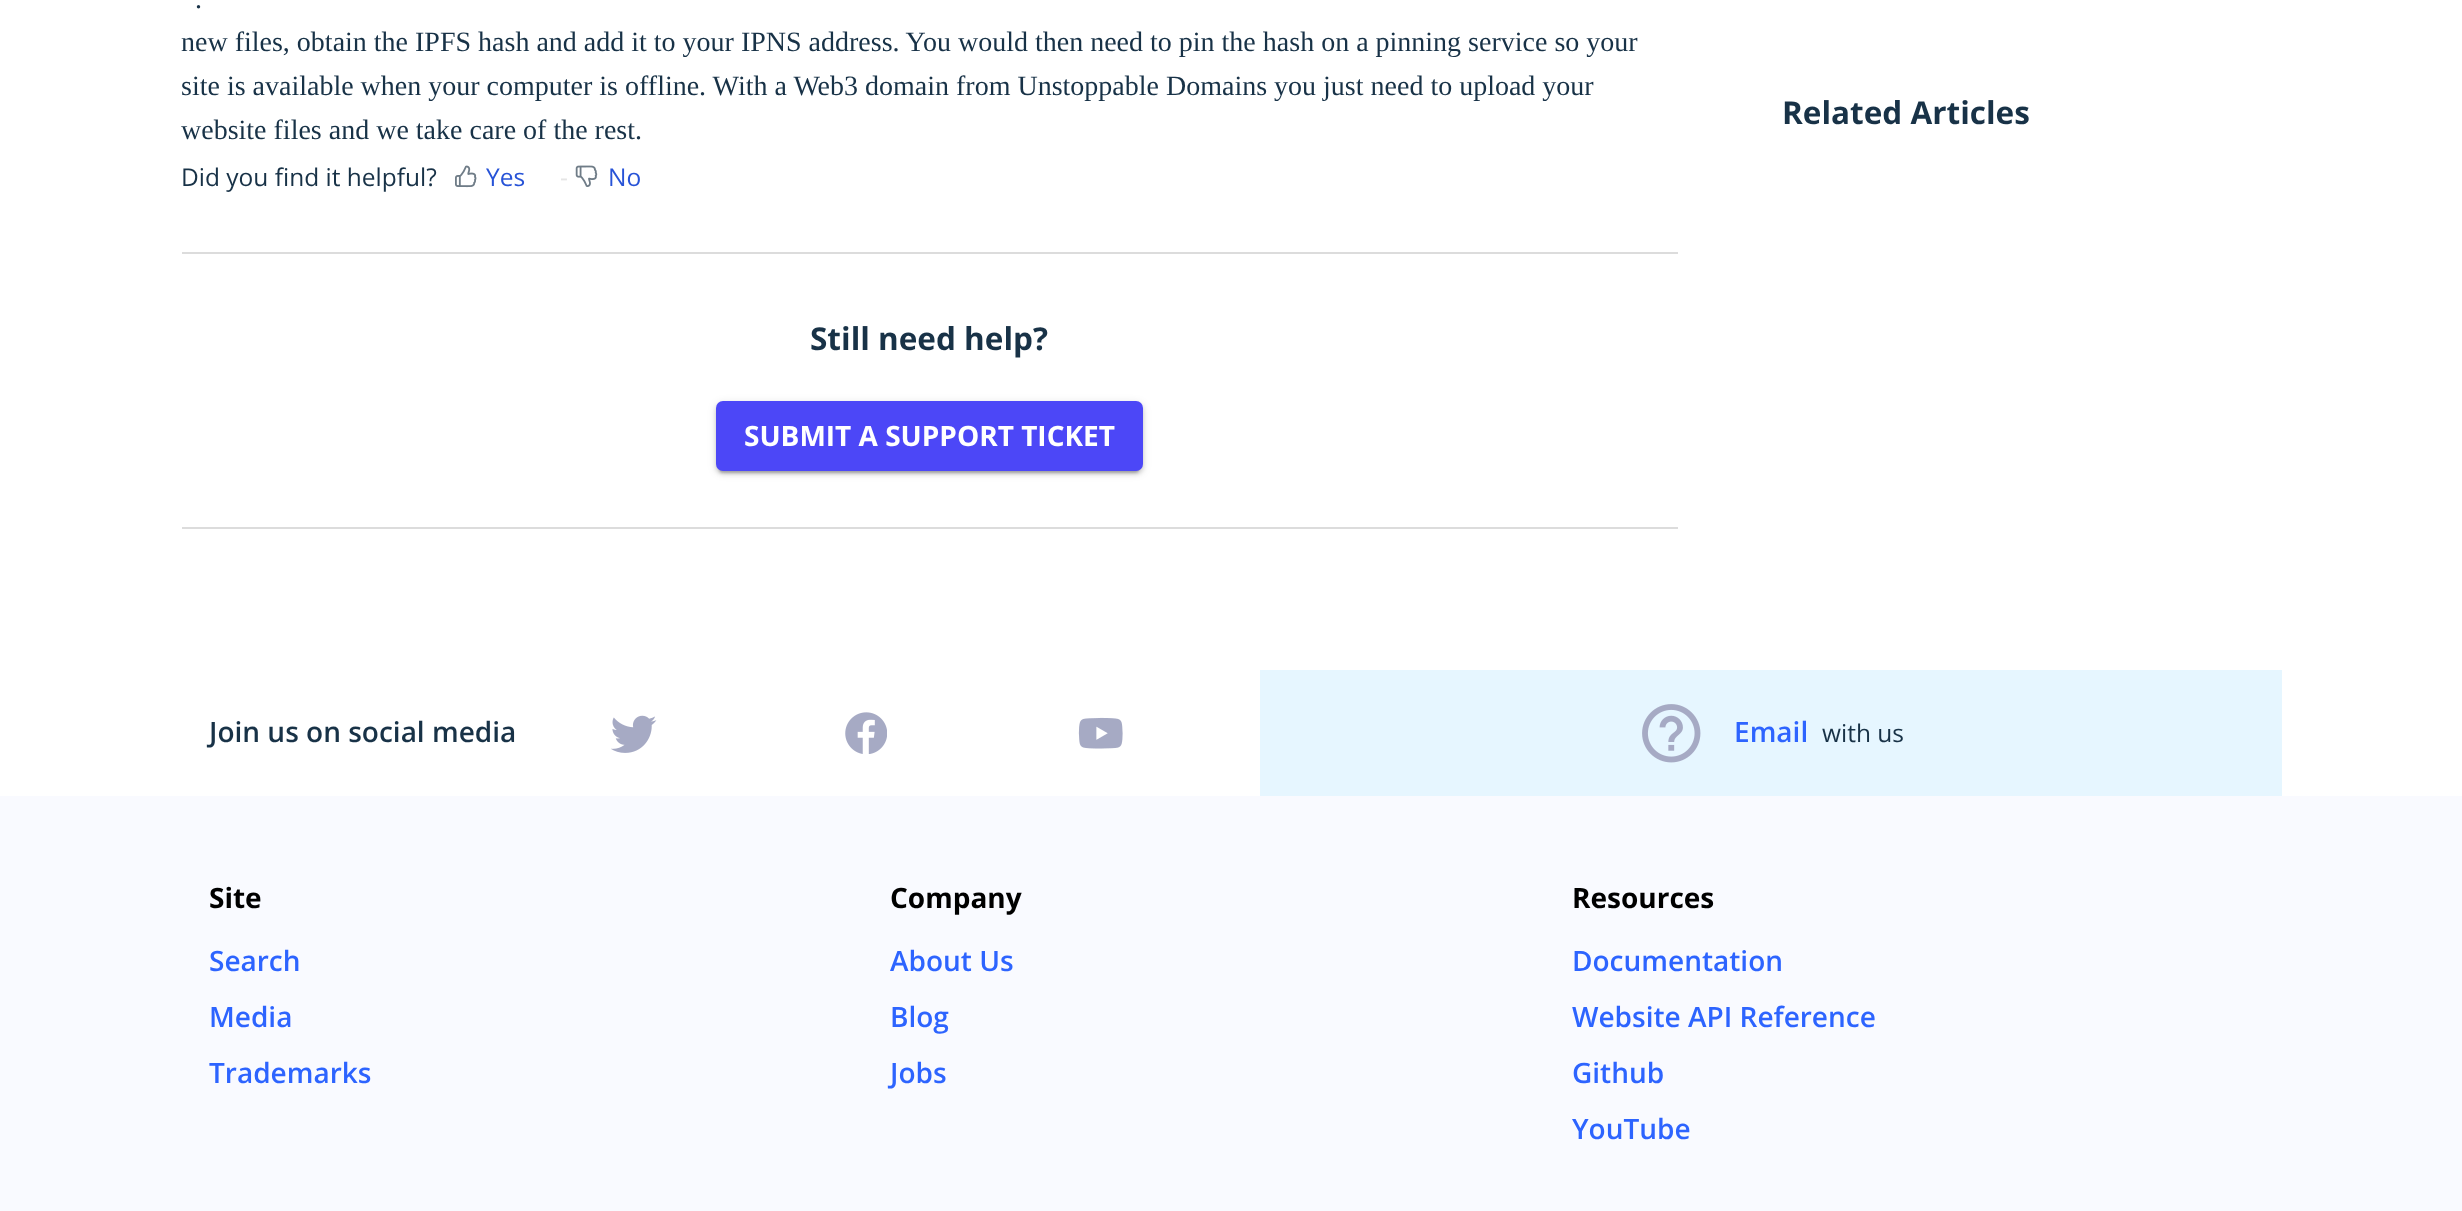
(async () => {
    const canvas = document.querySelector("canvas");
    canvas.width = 2462;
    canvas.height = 1211;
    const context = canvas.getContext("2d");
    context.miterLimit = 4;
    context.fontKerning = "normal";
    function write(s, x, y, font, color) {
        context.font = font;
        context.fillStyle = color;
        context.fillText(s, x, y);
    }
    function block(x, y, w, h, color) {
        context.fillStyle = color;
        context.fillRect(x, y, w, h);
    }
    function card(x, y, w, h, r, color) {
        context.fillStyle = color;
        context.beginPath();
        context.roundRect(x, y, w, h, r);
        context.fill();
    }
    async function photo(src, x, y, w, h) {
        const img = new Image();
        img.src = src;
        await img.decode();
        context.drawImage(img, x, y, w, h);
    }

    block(0, 0, 2462, 1211, "rgb(255, 255, 255)");
    write(".", 195, 8, "28px Liberation Serif", "rgb(24, 50, 71)");
    write("new files, obtain the IPFS hash and add it to your IPNS address. You would then need to pin the hash on a pinning service so your", 181, 51, "28px Liberation Serif", "rgb(24, 50, 71)");
    write("site is available when your computer is offline. With a Web3 domain from Unstoppable Domains you just need to upload your", 181, 95, "28px Liberation Serif", "rgb(24, 50, 71)");
    write("website files and we take care of the rest.", 181, 139, "28px Liberation Serif", "rgb(24, 50, 71)");
    write("Did you find it helpful?", 181, 186, "24.5px Open Sans", "rgb(24, 50, 71)");
    await photo("media/1.png", 455, 165, 22, 23);
    write("Yes", 486, 186, "24.5px Open Sans", "rgb(39, 83, 215)");
    write("-", 560, 186, "24.5px Open Sans", "rgb(229, 229, 229)");
    await photo("media/2.png", 575, 165, 23, 22);
    write("No", 608, 186, "24.5px Open Sans", "rgb(39, 83, 215)");
    block(182, 252, 1496, 2, "rgb(220, 220, 220)");
    write("Still need help?", 810, 350, "bold 31.5px Open Sans", "rgb(24, 50, 71)");
    context.fillStyle = "rgba(0, 0, 0, 0.12)";
    context.filter = "blur(4.5px)";
    context.beginPath();
    context.roundRect(716, 403, 427, 70, 7);
    context.fill();
    context.filter = "none";
    context.fillStyle = "rgba(0, 0, 0, 0.14)";
    context.filter = "blur(2px)";
    context.beginPath();
    context.roundRect(716, 404, 427, 70, 7);
    context.fill();
    context.filter = "none";
    context.fillStyle = "rgba(0, 0, 0, 0.2)";
    context.filter = "blur(1px)";
    context.beginPath();
    context.roundRect(719, 410, 420, 63, 4);
    context.fill();
    context.filter = "none";
    card(716, 401, 427, 70, 7, "rgb(76, 71, 247)");
    write("SUBMIT A SUPPORT TICKET", 744, 446, "bold 28px Open Sans", "rgb(255, 255, 255)");
    block(182, 527, 1496, 2, "rgb(220, 220, 220)");
    write("Related Articles", 1782, 124, "bold 31.5px Open Sans", "rgb(24, 50, 71)");
    write("Join us on social media", 209, 742, "600 28px Open Sans", "rgb(24, 50, 71)");
    await photo("media/3.png", 611, 715, 46, 38);
    await photo("media/4.png", 845, 712, 42, 42);
    await photo("media/5.png", 1078, 717, 45, 32);
    block(1260, 670, 1022, 126, "rgb(230, 246, 255)");
    await photo("media/6.png", 1642, 704, 59, 59);
    write("Email", 1734, 742, "600 28px Open Sans", "rgb(45, 100, 255)");
    write("with us", 1822, 742, "24.5px Open Sans", "rgb(24, 50, 71)");
    block(0, 796, 2462, 415, "rgb(249, 250, 255)");
    write("Site", 209, 908, "bold 28px Open Sans", "rgb(0, 0, 0)");
    write("Search", 209, 971, "600 28px Open Sans", "rgb(45, 100, 255)");
    write("Media", 209, 1027, "600 28px Open Sans", "rgb(45, 100, 255)");
    write("Trademarks", 209, 1083, "600 28px Open Sans", "rgb(45, 100, 255)");
    write("Company", 890, 908, "bold 28px Open Sans", "rgb(0, 0, 0)");
    write("About Us", 890, 971, "600 28px Open Sans", "rgb(45, 100, 255)");
    write("Blog", 890, 1027, "600 28px Open Sans", "rgb(45, 100, 255)");
    write("Jobs", 890, 1083, "600 28px Open Sans", "rgb(45, 100, 255)");
    write("Resources", 1572, 908, "bold 28px Open Sans", "rgb(0, 0, 0)");
    write("Documentation", 1572, 971, "600 28px Open Sans", "rgb(45, 100, 255)");
    write("Website API Reference", 1572, 1027, "600 28px Open Sans", "rgb(45, 100, 255)");
    write("Github", 1572, 1083, "600 28px Open Sans", "rgb(45, 100, 255)");
    write("YouTube", 1572, 1139, "600 28px Open Sans", "rgb(45, 100, 255)");
})();
